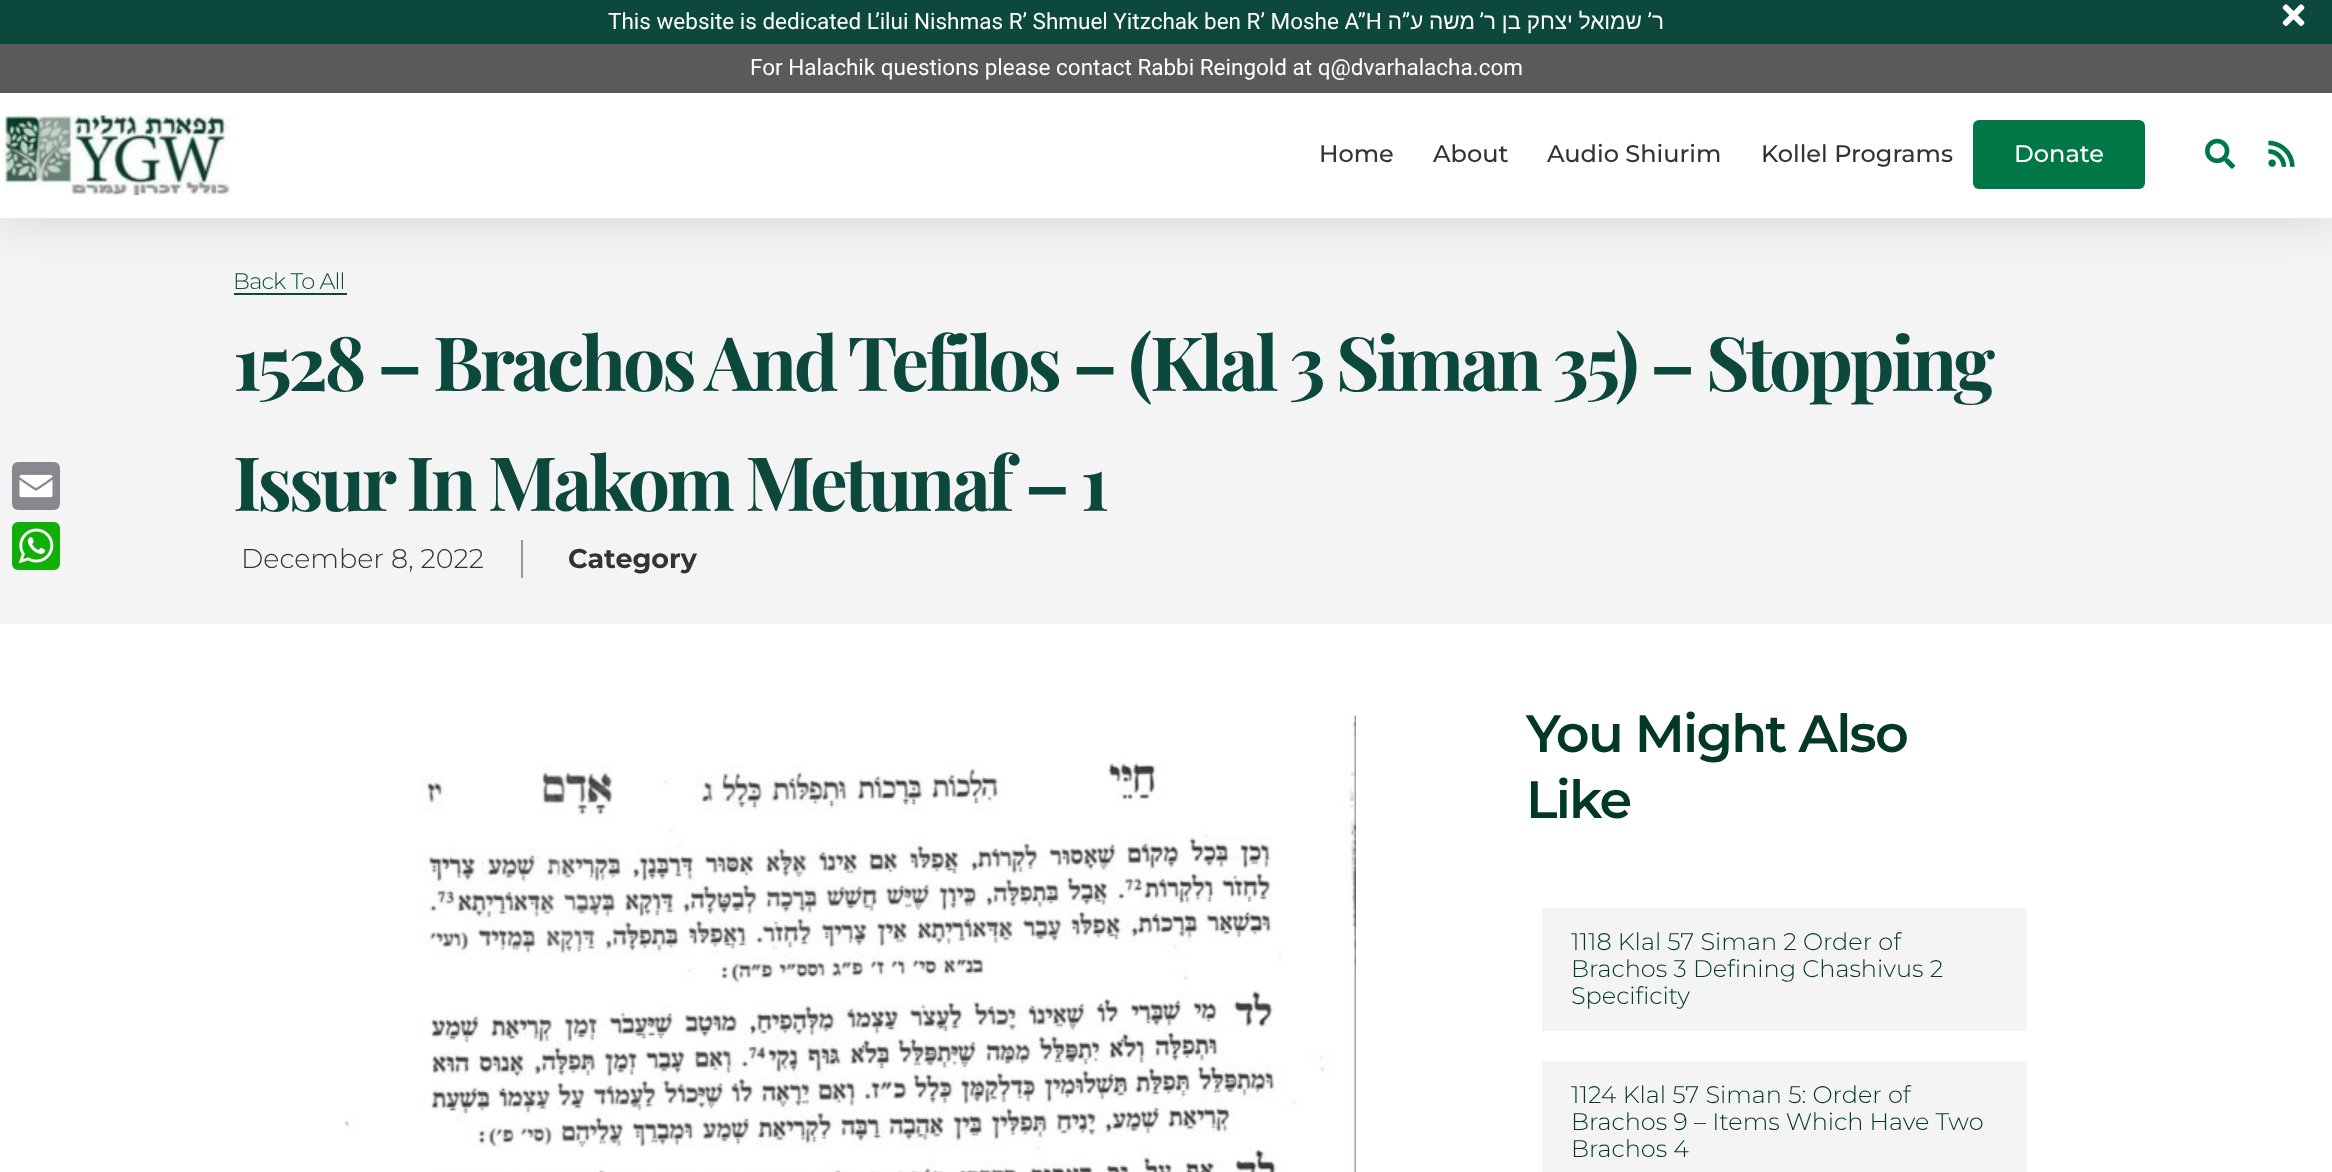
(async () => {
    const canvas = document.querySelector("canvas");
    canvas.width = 2332;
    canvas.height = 1172;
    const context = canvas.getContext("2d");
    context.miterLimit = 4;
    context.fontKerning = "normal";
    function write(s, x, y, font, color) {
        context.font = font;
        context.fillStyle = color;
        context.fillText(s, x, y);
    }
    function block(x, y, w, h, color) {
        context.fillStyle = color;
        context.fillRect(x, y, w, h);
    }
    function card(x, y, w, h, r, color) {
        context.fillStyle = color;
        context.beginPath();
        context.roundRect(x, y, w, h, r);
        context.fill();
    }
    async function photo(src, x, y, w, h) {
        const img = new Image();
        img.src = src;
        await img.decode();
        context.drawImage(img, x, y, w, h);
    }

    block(0, 0, 2332, 1172, "rgb(255, 255, 255)");
    block(0, 218, 2332, 406, "rgb(244, 244, 244)");
    card(12, 462, 48, 48, 6, "rgb(136, 137, 144)");
    await photo("media/1.png", 19, 474, 34, 24);
    card(12, 522, 48, 48, 6, "rgb(18, 175, 10)");
    await photo("media/2.png", 18, 528, 36, 36);
    block(234, 293, 113, 2, "rgb(13, 72, 60)");
    context.fillStyle = "rgba(0, 0, 0, 0.1)";
    context.filter = "blur(22.5px)";
    context.beginPath();
    context.rect(0, 8, 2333, 217);
    context.fill();
    context.filter = "none";
    block(0, 0, 2332, 44, "rgb(13, 72, 60)");
    write("This website is dedicated L’ilui Nishmas R’ Shmuel Yitzchak ben R’ Moshe A”H", 608, 29, "22.5px Roboto", "rgb(255, 255, 255)");
    context.direction = "rtl";
    write("ה", 1402, 29, "22.5px Liberation Sans", "rgb(255, 255, 255)");
    write("”", 1410, 29, "22.5px Roboto", "rgb(255, 255, 255)");
    context.wordSpacing = "-0.5px";
    write("משה ע", 1475, 29, "22.5px Liberation Sans", "rgb(255, 255, 255)");
    context.wordSpacing = "0px";
    write("’", 1484, 29, "22.5px Roboto", "rgb(255, 255, 255)");
    context.wordSpacing = "-0.5px";
    write("שמואל יצחק בן ר", 1642, 29, "22.5px Liberation Sans", "rgb(255, 255, 255)");
    context.wordSpacing = "0px";
    write("’", 1652, 29, "22.5px Roboto", "rgb(255, 255, 255)");
    write("ר", 1664, 29, "22.5px Liberation Sans", "rgb(255, 255, 255)");
    await photo("media/3.png", 2282, 4, 23, 22);
    block(0, 44, 2332, 49, "rgb(90, 90, 90)");
    context.direction = "ltr";
    write("For Halachik questions please contact Rabbi Reingold at q@dvarhalacha.com", 750, 75, "22.5px Roboto", "rgb(255, 255, 255)");
    block(0, 93, 2332, 125, "rgb(255, 255, 255)");
    await photo("media/4.png", 4, 115, 226, 80);
    write("Home", 1319, 162, "500 24px Montserrat", "rgb(51, 51, 51)");
    write("About", 1433, 162, "500 24px Montserrat", "rgb(51, 51, 51)");
    write("Audio Shiurim", 1547, 162, "500 24px Montserrat", "rgb(51, 51, 51)");
    write("Kollel Programs", 1761, 162, "500 24px Montserrat", "rgb(51, 51, 51)");
    card(1973, 120, 172, 69, 6, "rgb(0, 119, 71)");
    write("Donate", 2014, 162, "500 24px Montserrat", "rgb(255, 255, 255)");
    await photo("media/5.png", 2205, 138, 30, 31);
    await photo("media/6.png", 2268, 140, 27, 27);
    context.letterSpacing = "-0.75px";
    write("Back To All", 233, 289, "300 22.5px Montserrat", "rgb(13, 72, 60)");
    context.letterSpacing = "-3.38px";
    write("1528 – Brachos And Tefilos – (Klal 3 Siman 35) – Stopping", 233, 391, "bold 75px Playfair Display", "rgb(13, 72, 60)");
    write("Issur In Makom Metunaf – 1", 233, 511, "bold 75px Playfair Display", "rgb(13, 72, 60)");
    context.letterSpacing = "0px";
    write("December 8, 2022", 241, 568, "300 27px Montserrat", "rgb(51, 51, 51)");
    block(521, 540, 2, 38, "rgb(153, 153, 153)");
    write("Category", 568, 568, "bold 27px Montserrat", "rgb(51, 51, 51)");
    await photo("media/7.png", 344, 715, 1012, 457);
    context.letterSpacing = "-1.75px";
    write("You Might Also", 1526, 752, "600 52.5px Montserrat", "rgb(3, 57, 35)");
    write("Like", 1526, 818, "600 52.5px Montserrat", "rgb(3, 57, 35)");
    block(1542, 908, 485, 123, "rgb(244, 244, 244)");
    context.letterSpacing = "0px";
    write("1118 Klal 57 Siman 2 Order of", 1571, 950, "300 24px Montserrat", "rgb(3, 57, 35)");
    write("Brachos 3 Defining Chashivus 2", 1571, 977, "300 24px Montserrat", "rgb(3, 57, 35)");
    write("Specificity", 1571, 1004, "300 24px Montserrat", "rgb(3, 57, 35)");
    block(1542, 1061, 485, 111, "rgb(244, 244, 244)");
    write("1124 Klal 57 Siman 5: Order of", 1571, 1103, "300 24px Montserrat", "rgb(3, 57, 35)");
    write("Brachos 9 – Items Which Have Two", 1571, 1130, "300 24px Montserrat", "rgb(3, 57, 35)");
    write("Brachos 4", 1571, 1157, "300 24px Montserrat", "rgb(3, 57, 35)");
})();
